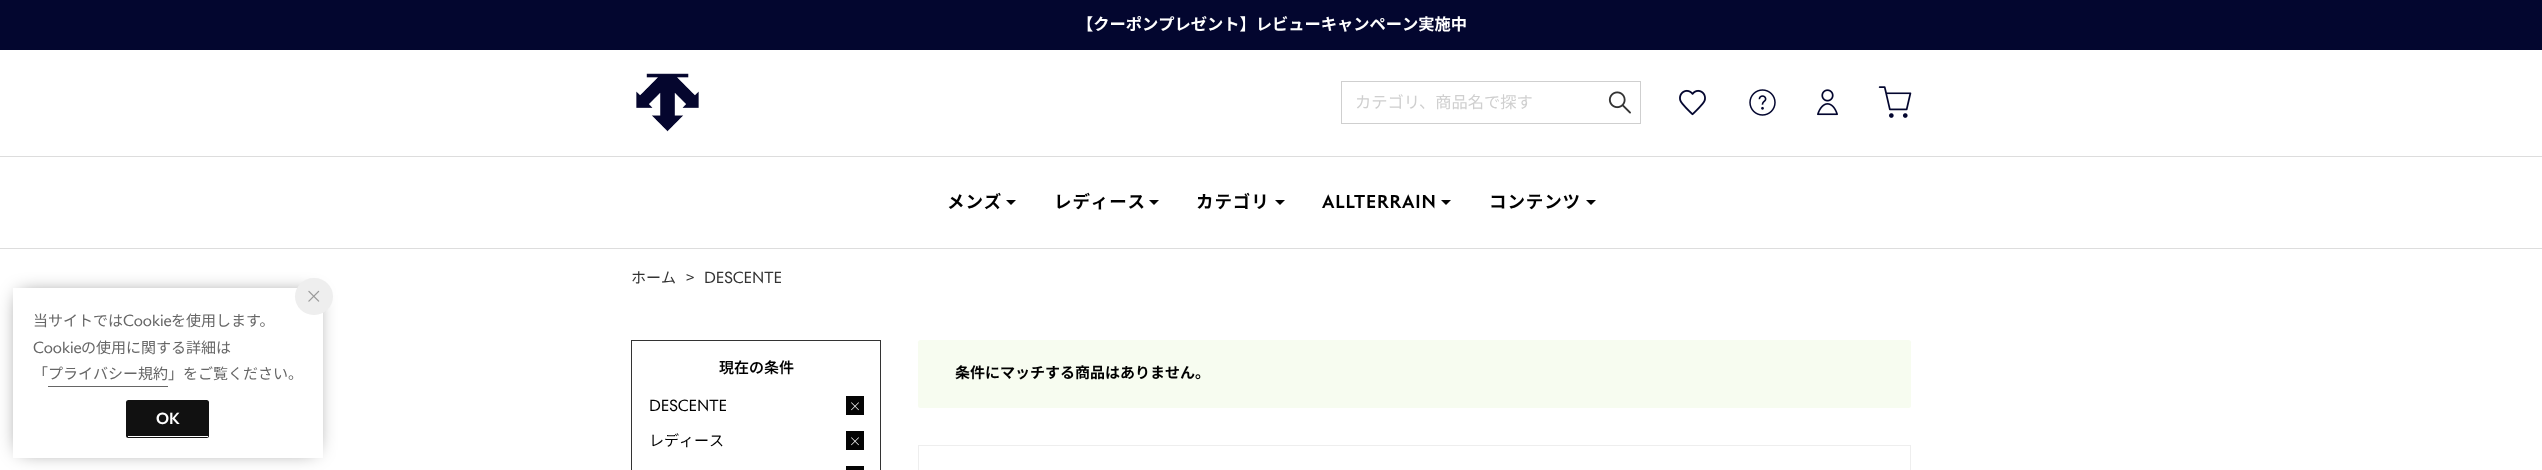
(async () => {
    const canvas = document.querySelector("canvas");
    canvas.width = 2542;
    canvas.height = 470;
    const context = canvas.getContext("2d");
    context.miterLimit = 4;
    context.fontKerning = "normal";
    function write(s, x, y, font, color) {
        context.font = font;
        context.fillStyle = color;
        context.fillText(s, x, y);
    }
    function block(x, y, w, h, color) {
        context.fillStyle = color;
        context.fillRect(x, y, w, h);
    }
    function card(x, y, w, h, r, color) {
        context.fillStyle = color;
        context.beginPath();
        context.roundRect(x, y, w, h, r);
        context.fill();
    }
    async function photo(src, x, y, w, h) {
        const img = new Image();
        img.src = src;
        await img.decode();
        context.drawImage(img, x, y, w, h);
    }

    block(0, 0, 2542, 470, "rgb(255, 255, 255)");
    block(0, 0, 2542, 50, "rgb(3, 6, 47)");
    write("【クーポンプレゼント】レビューキャンペーン実施中", 1077, 30, "bold 16.25px Noto Sans JP", "rgb(255, 255, 255)");
    await photo("media/1.png", 636, 73, 63, 59);
    context.strokeStyle = "rgb(207, 207, 207)";
    context.strokeRect(1341.5, 81.5, 299, 42);
    write("カテゴリ、商品名で探す", 1355, 108, "16.25px Noto Sans JP", "rgb(207, 207, 207)");
    await photo("media/2.png", 1608, 91, 23, 23);
    await photo("media/3.png", 1679, 89, 27, 27);
    await photo("media/4.png", 1749, 89, 27, 27);
    await photo("media/5.png", 1817, 89, 21, 27);
    await photo("media/6.png", 1878, 86, 34, 32);
    block(0, 156, 2542, 1, "rgb(221, 221, 221)");
    block(0, 248, 2542, 1, "rgb(221, 221, 221)");
    context.letterSpacing = "0.9px";
    write("メンズ", 947, 208, "bold 17.5px Noto Sans JP", "rgb(0, 0, 0)");
    context.fillStyle = "rgb(4, 4, 4)";
    context.beginPath();
    context.moveTo(1006, 200);
    context.lineTo(1016, 200);
    context.lineTo(1011, 205);
    context.closePath();
    context.fill();
    write("レディース", 1054, 208, "bold 17.5px Noto Sans JP", "rgb(0, 0, 0)");
    context.fillStyle = "rgb(4, 4, 4)";
    context.beginPath();
    context.moveTo(1149, 200);
    context.lineTo(1159, 200);
    context.lineTo(1154, 205);
    context.closePath();
    context.fill();
    write("カテゴリ", 1196, 208, "bold 17.5px Noto Sans JP", "rgb(0, 0, 0)");
    context.fillStyle = "rgb(4, 4, 4)";
    context.beginPath();
    context.moveTo(1275, 200);
    context.lineTo(1285, 200);
    context.lineTo(1280, 205);
    context.closePath();
    context.fill();
    write("ALLTERRAIN", 1322, 208, "bold 17.5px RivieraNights", "rgb(0, 0, 0)");
    context.fillStyle = "rgb(4, 4, 4)";
    context.beginPath();
    context.moveTo(1441, 200);
    context.lineTo(1451, 200);
    context.lineTo(1446, 205);
    context.closePath();
    context.fill();
    write("コンテンツ", 1489, 208, "bold 17.5px Noto Sans JP", "rgb(0, 0, 0)");
    context.fillStyle = "rgb(4, 4, 4)";
    context.beginPath();
    context.moveTo(1586, 200);
    context.lineTo(1596, 200);
    context.lineTo(1591, 205);
    context.closePath();
    context.fill();
    context.fillStyle = "rgba(0, 0, 0, 0.6)";
    context.filter = "blur(10px)";
    context.beginPath();
    context.rect(20, 295, 295, 155);
    context.fill();
    context.filter = "none";
    block(13, 288, 310, 170, "rgb(255, 255, 255)");
    card(295, 278, 38, 37, 18.5, "rgb(238, 238, 238)");
    await photo("media/7.png", 308, 290, 12, 12);
    context.letterSpacing = "0px";
    write("当サイトでは", 33, 326, "15px Noto Sans JP", "rgb(102, 102, 102)");
    write("Cookie", 123, 326, "15px RivieraNights", "rgb(102, 102, 102)");
    write("を使用します。", 171, 326, "15px Noto Sans JP", "rgb(102, 102, 102)");
    write("Cookie", 33, 353, "15px RivieraNights", "rgb(102, 102, 102)");
    write("の使用に関する詳細は", 81, 353, "15px Noto Sans JP", "rgb(102, 102, 102)");
    write("「プライバシー規約」をご覧ください。", 33, 379, "15px Noto Sans JP", "rgb(102, 102, 102)");
    block(48, 386, 120, 1, "rgb(102, 102, 102)");
    card(126, 400, 83, 38, 2.5, "rgb(17, 17, 17)");
    block(128, 436, 80, 1, "rgb(255, 255, 255)");
    write("OK", 156, 424, "bold 15px RivieraNights", "rgb(255, 255, 255)");
    write("ホーム", 631, 283, "15px Noto Sans JP", "rgb(51, 51, 51)");
    write(">", 686, 283, "15px Noto Sans JP", "rgb(51, 51, 51)");
    write("DESCENTE", 704, 283, "15px RivieraNights", "rgb(51, 51, 51)");
    context.strokeStyle = "rgb(51, 51, 51)";
    context.strokeRect(631.5, 340.5, 249, 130);
    write("現在の条件", 719, 373, "600 15px Noto Sans JP", "rgb(0, 0, 0)");
    write("DESCENTE", 649, 411, "15px RivieraNights", "rgb(0, 0, 0)");
    block(846, 396, 18, 19, "rgb(4, 4, 4)");
    await photo("media/8.png", 851, 402, 8, 9);
    write("レディース", 649, 446, "15px Noto Sans JP", "rgb(0, 0, 0)");
    block(846, 431, 18, 19, "rgb(4, 4, 4)");
    await photo("media/8.png", 851, 437, 8, 9);
    block(846, 466, 18, 4, "rgb(4, 4, 4)");
    card(918, 340, 993, 68, 2.5, "rgb(247, 252, 240)");
    write("条件にマッチする商品はありません。", 955, 378, "bold 15px Noto Sans JP", "rgb(0, 0, 0)");
    context.strokeStyle = "rgb(238, 238, 238)";
    context.strokeRect(918.5, 445.5, 992, 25);
})();
